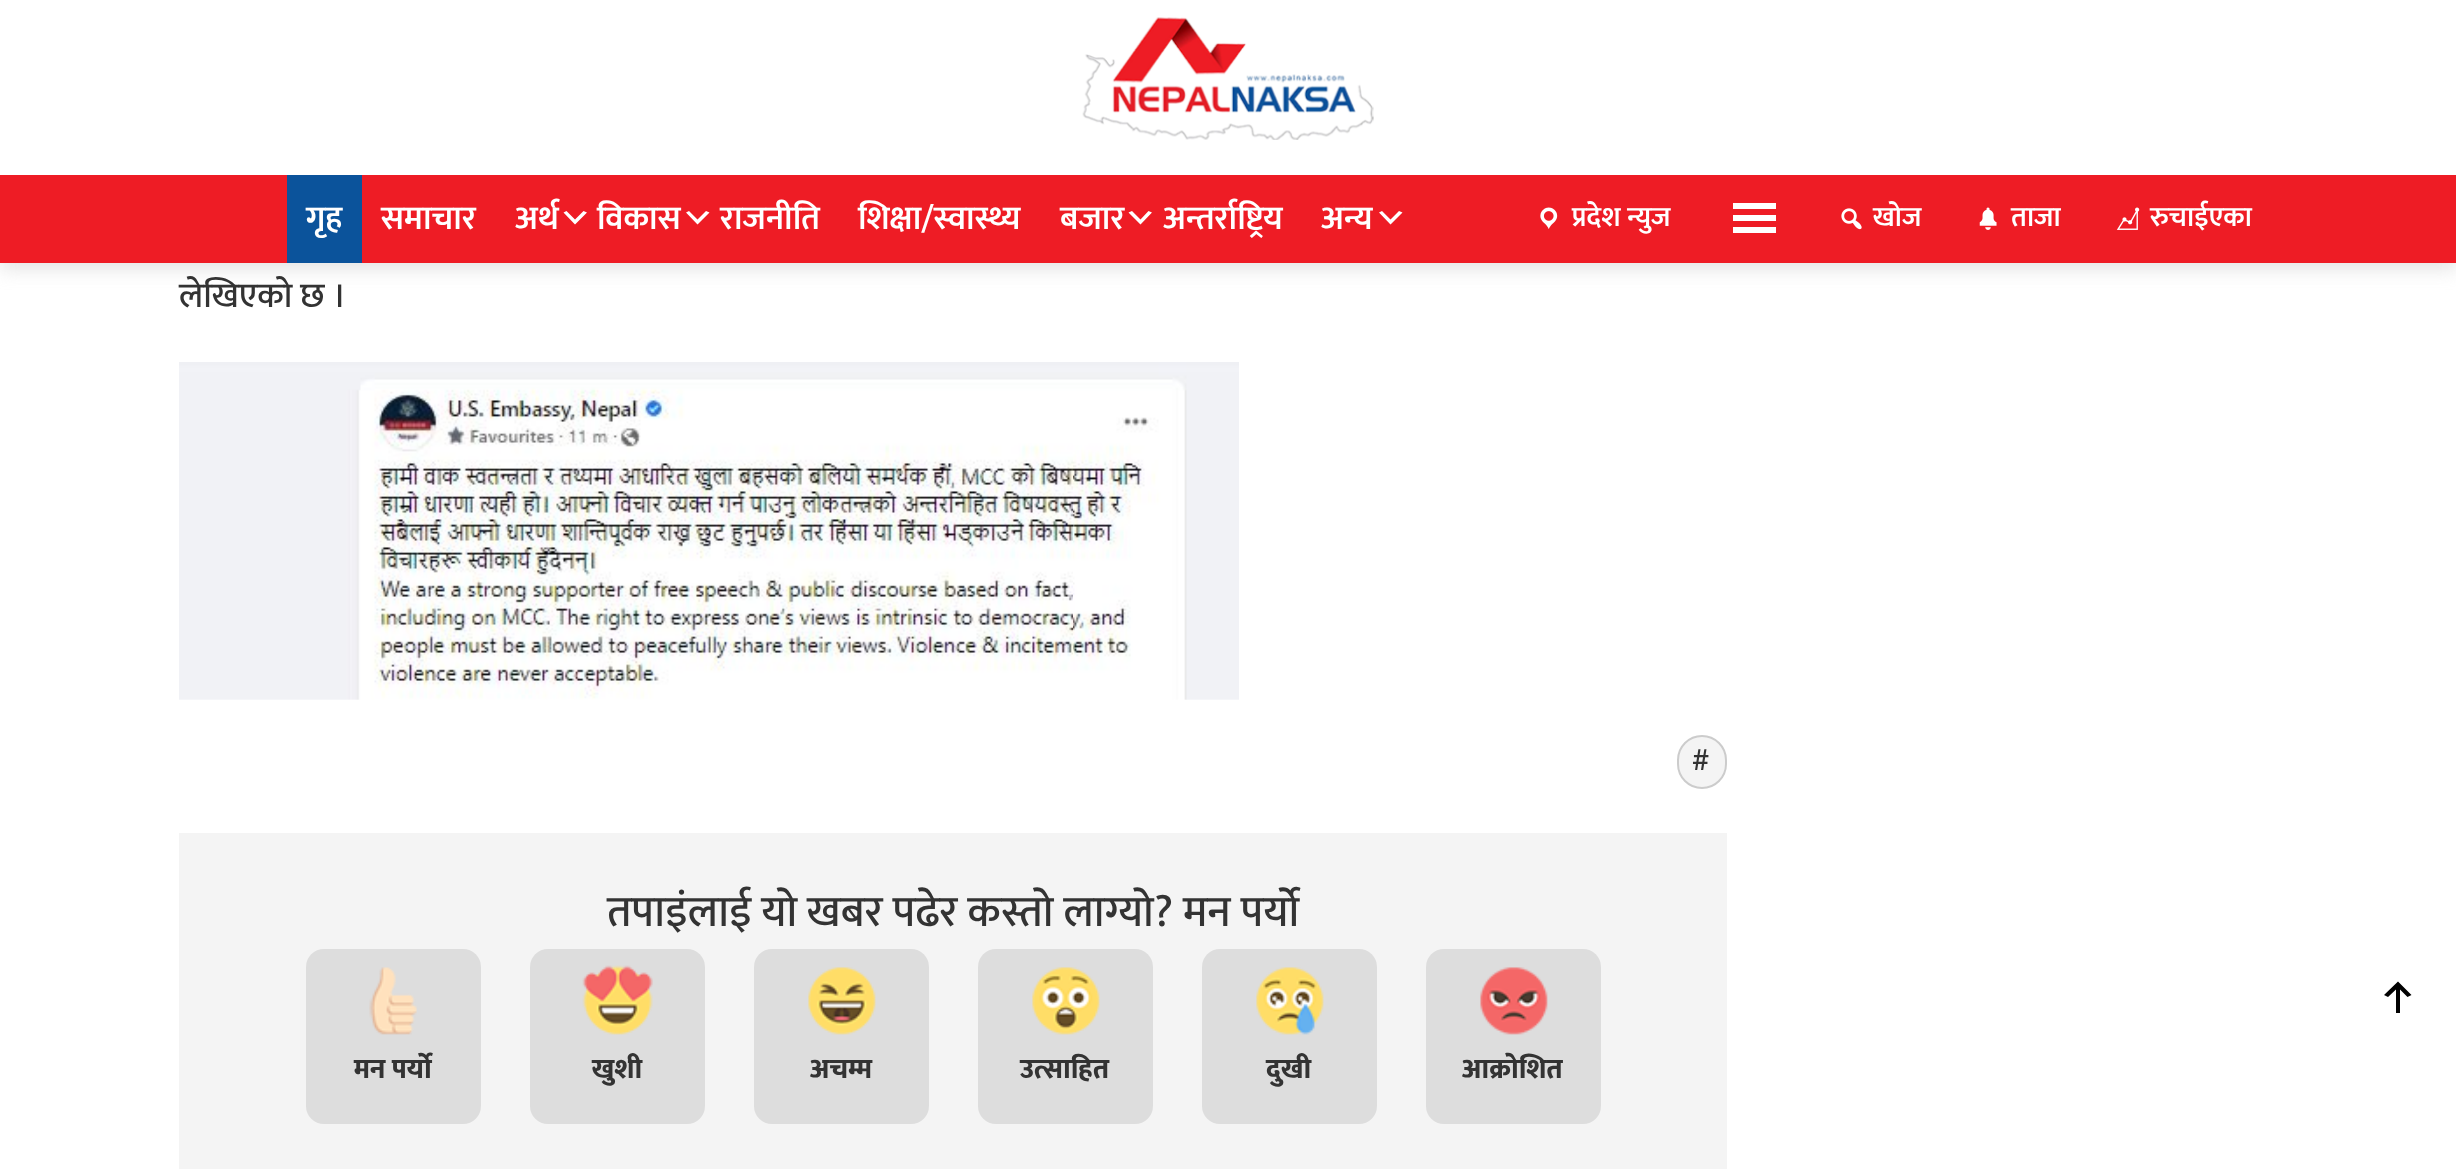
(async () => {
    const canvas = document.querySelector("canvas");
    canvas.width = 2456;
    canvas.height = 1169;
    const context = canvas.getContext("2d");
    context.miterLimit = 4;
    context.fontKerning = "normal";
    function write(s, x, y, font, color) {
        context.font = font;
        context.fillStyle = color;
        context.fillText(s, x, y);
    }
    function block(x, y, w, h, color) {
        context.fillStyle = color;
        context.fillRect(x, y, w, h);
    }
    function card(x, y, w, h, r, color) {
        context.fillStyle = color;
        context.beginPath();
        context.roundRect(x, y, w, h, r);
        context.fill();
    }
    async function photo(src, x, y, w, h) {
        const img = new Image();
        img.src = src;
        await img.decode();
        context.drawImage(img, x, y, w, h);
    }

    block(0, 0, 2456, 1169, "rgb(255, 255, 255)");
    context.fillStyle = "rgba(193, 193, 193, 0.4)";
    context.filter = "blur(9px)";
    context.beginPath();
    context.rect(0, 7, 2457, 263);
    context.fill();
    context.filter = "none";
    block(0, 0, 2456, 175, "rgb(255, 255, 255)");
    await photo("media/1.png", 1082, 17, 292, 123);
    block(0, 175, 2456, 88, "rgb(238, 28, 37)");
    block(287, 175, 75, 88, "rgb(11, 83, 155)");
    write("गृह", 306, 229, "600 33.5px Mukta", "rgb(255, 255, 255)");
    write("समाचार", 381, 229, "600 33.5px Mukta", "rgb(255, 255, 255)");
    write("अर्थ", 515, 229, "600 33.5px Mukta", "rgb(255, 255, 255)");
    context.beginPath();
    context.moveTo(566.5, 211);
    context.lineTo(575, 219.5);
    context.lineTo(583.5, 211);
    context.lineTo(587, 212.5);
    context.lineTo(575, 224.5);
    context.lineTo(563.5, 212.5);
    context.closePath();
    context.fill();
    write("विकास", 597, 229, "600 33.5px Mukta", "rgb(255, 255, 255)");
    context.beginPath();
    context.moveTo(689, 211);
    context.lineTo(697.5, 219.5);
    context.lineTo(706, 211);
    context.lineTo(709.5, 212.5);
    context.lineTo(697.5, 224.5);
    context.lineTo(686, 212.5);
    context.closePath();
    context.fill();
    write("राजनीति", 720, 229, "600 33.5px Mukta", "rgb(255, 255, 255)");
    write("शिक्षा/स्वास्थ्य", 858, 229, "600 33.5px Mukta", "rgb(255, 255, 255)");
    write("बजार", 1060, 229, "600 33.5px Mukta", "rgb(255, 255, 255)");
    context.beginPath();
    context.moveTo(1132, 211);
    context.lineTo(1140.5, 219.5);
    context.lineTo(1148.5, 211);
    context.lineTo(1152, 212.5);
    context.lineTo(1140.5, 224.5);
    context.lineTo(1128.5, 212.5);
    context.closePath();
    context.fill();
    write("अन्तर्राष्ट्रिय", 1163, 229, "600 33.5px Mukta", "rgb(255, 255, 255)");
    write("अन्य", 1321, 229, "600 33.5px Mukta", "rgb(255, 255, 255)");
    context.beginPath();
    context.moveTo(1382, 211);
    context.lineTo(1390.5, 219.5);
    context.lineTo(1399, 211);
    context.lineTo(1402.5, 212.5);
    context.lineTo(1390.5, 224.5);
    context.lineTo(1379, 212.5);
    context.closePath();
    context.fill();
    await photo("media/2.png", 1540, 207, 18, 22);
    write("प्रदेश न्युज", 1572, 226, "600 28px Mukta", "rgb(255, 255, 255)");
    context.beginPath();
    context.moveTo(1733, 233);
    context.lineTo(1776, 233);
    context.lineTo(1776, 227);
    context.lineTo(1733, 227);
    context.closePath();
    context.moveTo(1733, 203);
    context.lineTo(1733, 209);
    context.lineTo(1776, 209);
    context.lineTo(1776, 203);
    context.closePath();
    context.moveTo(1733, 221);
    context.lineTo(1776, 221);
    context.lineTo(1776, 215);
    context.lineTo(1733, 215);
    context.closePath();
    context.fill();
    await photo("media/3.png", 1841, 208, 21, 22);
    write("खोज", 1873, 226, "600 28px Mukta", "rgb(255, 255, 255)");
    await photo("media/4.png", 1979, 207, 18, 23);
    write("ताजा", 2011, 226, "600 28px Mukta", "rgb(255, 255, 255)");
    await photo("media/5.png", 2116, 207, 24, 23);
    write("रुचाईएका", 2150, 226, "600 28px Mukta", "rgb(255, 255, 255)");
    write("लेखिएको छ ।", 179, 307, "500 35px Mukta", "rgb(51, 51, 51)");
    await photo("media/6.png", 179, 362, 1060, 338);
    context.fillStyle = "rgb(244, 244, 244)";
    context.beginPath();
    context.roundRect(1678, 736, 48, 52, 24);
    context.fill();
    context.strokeStyle = "rgb(204, 204, 204)";
    context.lineWidth = 2;
    context.stroke();
    write("#", 1692, 770, "600 28px Mukta", "rgb(51, 51, 51)");
    block(179, 833, 1548, 336, "rgb(244, 244, 244)");
    write("तपाइंलाई यो खबर पढेर कस्तो लाग्यो? मन पर्यो", 607, 926, "500 43.75px Mukta", "rgb(51, 51, 51)");
    card(306, 949, 175, 175, 18, "rgb(221, 221, 221)");
    await photo("media/7.png", 369, 967, 48, 68);
    write("मन पर्यो", 354, 1078, "800 28px Mukta", "rgb(51, 51, 51)");
    card(530, 949, 175, 175, 18, "rgb(221, 221, 221)");
    await photo("media/8.png", 582, 965, 71, 70);
    write("खुशी", 592, 1078, "800 28px Mukta", "rgb(51, 51, 51)");
    card(754, 949, 175, 175, 18, "rgb(221, 221, 221)");
    await photo("media/9.png", 808, 967, 68, 68);
    write("अचम्म", 810, 1078, "800 28px Mukta", "rgb(51, 51, 51)");
    card(978, 949, 175, 175, 18, "rgb(221, 221, 221)");
    await photo("media/10.png", 1032, 967, 68, 68);
    write("उत्साहित", 1020, 1078, "800 28px Mukta", "rgb(51, 51, 51)");
    card(1202, 949, 175, 175, 18, "rgb(221, 221, 221)");
    await photo("media/11.png", 1256, 967, 68, 68);
    write("दुखी", 1266, 1078, "800 28px Mukta", "rgb(51, 51, 51)");
    card(1426, 949, 175, 175, 18, "rgb(221, 221, 221)");
    await photo("media/12.png", 1480, 967, 68, 68);
    write("आक्रोशित", 1462, 1078, "800 28px Mukta", "rgb(51, 51, 51)");
    context.fillStyle = "rgb(1, 1, 1)";
    context.beginPath();
    context.moveTo(2400, 1013);
    context.lineTo(2396, 1013);
    context.lineTo(2396, 989.5);
    context.lineTo(2388, 997);
    context.lineTo(2384, 995);
    context.lineTo(2398, 981.5);
    context.lineTo(2411.5, 995);
    context.lineTo(2407.5, 997);
    context.lineTo(2400, 989.5);
    context.closePath();
    context.fill();
})();
